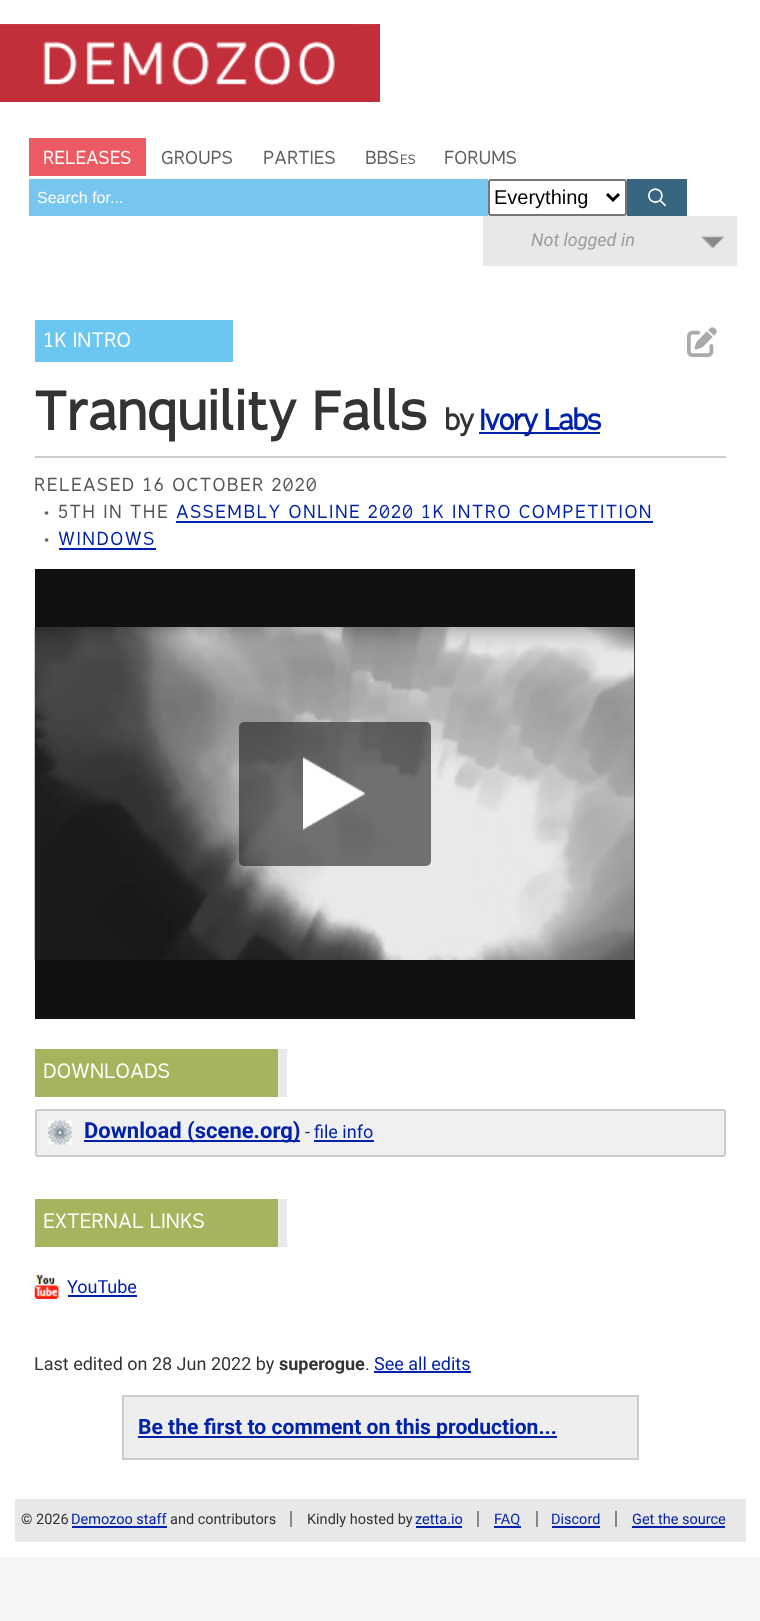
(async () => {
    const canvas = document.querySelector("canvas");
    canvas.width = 760;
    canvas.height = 1621;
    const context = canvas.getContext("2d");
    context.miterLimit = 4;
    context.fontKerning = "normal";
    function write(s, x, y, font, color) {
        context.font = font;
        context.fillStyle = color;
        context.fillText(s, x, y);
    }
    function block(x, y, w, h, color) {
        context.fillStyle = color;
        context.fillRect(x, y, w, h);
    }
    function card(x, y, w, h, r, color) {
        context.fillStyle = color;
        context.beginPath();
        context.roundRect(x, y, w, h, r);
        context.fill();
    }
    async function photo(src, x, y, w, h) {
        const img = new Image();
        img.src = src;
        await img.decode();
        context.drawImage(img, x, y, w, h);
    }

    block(0, 0, 760, 1621, "rgb(245, 245, 245)");
    block(0, 0, 760, 1484, "rgb(255, 255, 255)");
    block(0, 24, 380, 78, "rgb(195, 46, 59)");
    await photo("media/1.png", 0, 24, 380, 62);
    block(29, 138, 117, 38, "rgb(236, 90, 100)");
    write("RELEASES", 43, 164, "18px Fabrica", "rgb(255, 255, 255)");
    write("GROUPS", 161, 164, "18px Fabrica", "rgb(94, 95, 95)");
    write("PARTIES", 263, 164, "18px Fabrica", "rgb(94, 95, 95)");
    write("BBS", 365, 164, "18px Fabrica", "rgb(94, 95, 95)");
    write("ES", 400, 164, "13px Fabrica", "rgb(94, 95, 95)");
    write("FORUMS", 444, 164, "18px Fabrica", "rgb(94, 95, 95)");
    block(29, 179, 459, 37, "rgb(119, 198, 239)");
    write("Search for...", 37, 203, "16px Liberation Sans", "rgb(255, 255, 255)");
    context.beginPath();
    context.roundRect(489, 180, 137, 35, 2);
    context.strokeStyle = "rgb(118, 118, 118)";
    context.lineWidth = 2;
    context.stroke();
    context.beginPath();
    context.moveTo(607, 194);
    context.lineTo(613, 200);
    context.lineTo(619, 194);
    context.strokeStyle = "rgb(0, 0, 0)";
    context.lineWidth = 3;
    context.stroke();
    write("Everything", 494, 204, "20px Liberation Sans", "rgb(0, 0, 0)");
    block(627, 179, 60, 37, "rgb(56, 101, 128)");
    await photo("media/2.png", 648, 188, 18, 19);
    block(483, 216, 254, 50, "rgb(232, 232, 232)");
    await photo("media/3.png", 701, 235, 24, 13);
    write("Not logged in", 531, 246, "italic 18px Roboto", "rgb(157, 157, 157)");
    block(35, 320, 198, 42, "rgb(107, 199, 241)");
    write("1K INTRO", 43, 347, "20px Fabrica", "rgb(255, 255, 255)");
    await photo("media/4.png", 687, 327, 30, 30);
    write("Tranquility Falls", 34, 430, "bold 52px Fabrica", "rgb(51, 51, 51)");
    context.letterSpacing = "-1.5px";
    write("by", 444, 430, "bold 28px Fabrica", "rgb(51, 51, 51)");
    block(479, 432, 121, 2, "rgb(0, 34, 170)");
    write("Ivory Labs", 479, 430, "bold 28px Fabrica", "rgb(0, 34, 170)");
    block(35, 456, 691, 2, "rgb(204, 204, 204)");
    context.letterSpacing = "1.5px";
    write("RELEASED 16 OCTOBER 2020", 34, 491, "18px Fabrica", "rgb(85, 85, 85)");
    await photo("media/5.png", 44, 511, 5, 4);
    write("5TH IN THE", 58, 518, "18px Fabrica", "rgb(85, 85, 85)");
    write("ASSEMBLY ONLINE 2020 1K INTRO COMPETITION", 176, 518, "18px Fabrica", "rgb(0, 34, 170)");
    block(176, 521, 477, 2, "rgb(0, 34, 170)");
    await photo("media/5.png", 44, 538, 5, 4);
    write("WINDOWS", 58, 545, "18px Fabrica", "rgb(0, 34, 170)");
    block(59, 548, 97, 2, "rgb(0, 34, 170)");
    block(35, 569, 600, 450, "rgb(17, 17, 17)");
    await photo("media/6.png", 34, 627, 601, 333);
    card(239, 722, 192, 144, 5, "rgba(32, 32, 32, 0.6)");
    await photo("media/7.png", 303, 757, 62, 73);
    block(35, 1049, 243, 48, "rgb(165, 180, 93)");
    block(278, 1049, 9, 48, "rgb(234, 234, 234)");
    context.letterSpacing = "0px";
    write("DOWNLOADS", 43, 1078, "20px Fabrica", "rgb(255, 255, 255)");
    card(35, 1109, 691, 48, 3, "rgb(240, 240, 240)");
    await photo("media/8.png", 48, 1120, 24, 25);
    context.beginPath();
    context.roundRect(36, 1110, 689, 46, 2);
    context.strokeStyle = "rgb(204, 204, 204)";
    context.lineWidth = 2;
    context.stroke();
    block(84, 1140, 216, 2, "rgb(0, 34, 170)");
    write("Download (scene.org)", 84, 1138, "bold 22px Roboto", "rgb(0, 34, 170)");
    write("-", 305, 1138, "18px Roboto", "rgb(51, 51, 51)");
    write("file info", 314, 1138, "18px Roboto", "rgb(0, 34, 170)");
    block(314, 1140, 60, 2, "rgb(0, 34, 170)");
    block(35, 1199, 243, 48, "rgb(165, 180, 93)");
    block(278, 1199, 9, 48, "rgb(234, 234, 234)");
    write("EXTERNAL LINKS", 43, 1228, "20px Fabrica", "rgb(255, 255, 255)");
    await photo("media/9.png", 34, 1275, 25, 24);
    write("YouTube", 67, 1293, "18px Roboto", "rgb(0, 34, 170)");
    block(68, 1295, 69, 2, "rgb(0, 34, 170)");
    write("Last edited on 28 Jun 2022 by", 34, 1370, "18px Roboto", "rgb(51, 51, 51)");
    write("superogue", 279, 1370, "bold 18px Roboto", "rgb(51, 51, 51)");
    write(".", 365, 1370, "18px Roboto", "rgb(51, 51, 51)");
    write("See all edits", 374, 1370, "18px Roboto", "rgb(0, 34, 170)");
    block(374, 1371, 97, 2, "rgb(0, 34, 170)");
    context.fillStyle = "rgb(238, 238, 238)";
    context.beginPath();
    context.rect(123, 1396, 515, 63);
    context.fill();
    context.stroke();
    block(138, 1436, 419, 2, "rgb(0, 34, 170)");
    write("Be the first to comment on this production...", 138, 1434, "bold 21.1px Roboto", "rgb(0, 34, 170)");
    context.fillStyle = "rgb(232, 232, 232)";
    context.beginPath();
    context.rect(7.5, 1491.5, 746, 58);
    context.fill();
    context.strokeStyle = "rgb(255, 255, 255)";
    context.lineWidth = 15;
    context.stroke();
    write("© 2026", 21, 1524, "14.5px Roboto", "rgb(51, 51, 51)");
    write("Demozoo staff", 71, 1524, "14.5px Roboto", "rgb(0, 34, 170)");
    block(72, 1526, 95, 2, "rgb(0, 34, 170)");
    write("and contributors", 170, 1524, "14.5px Roboto", "rgb(51, 51, 51)");
    write("Kindly hosted by", 307, 1524, "14.5px Roboto", "rgb(51, 51, 51)");
    block(290, 1511, 2, 16, "rgb(136, 136, 136)");
    write("zetta.io", 415, 1524, "14.5px Roboto", "rgb(0, 34, 170)");
    block(416, 1526, 46, 2, "rgb(0, 34, 170)");
    write("FAQ", 494, 1524, "14.5px Roboto", "rgb(0, 34, 170)");
    block(477, 1511, 2, 16, "rgb(136, 136, 136)");
    block(494, 1526, 27, 2, "rgb(0, 34, 170)");
    write("Discord", 551, 1524, "14.5px Roboto", "rgb(0, 34, 170)");
    block(536, 1511, 2, 16, "rgb(136, 136, 136)");
    block(552, 1526, 48, 2, "rgb(0, 34, 170)");
    write("Get the source", 632, 1524, "14.5px Roboto", "rgb(0, 34, 170)");
    block(615, 1511, 2, 16, "rgb(136, 136, 136)");
    block(632, 1526, 93, 2, "rgb(0, 34, 170)");
})();
